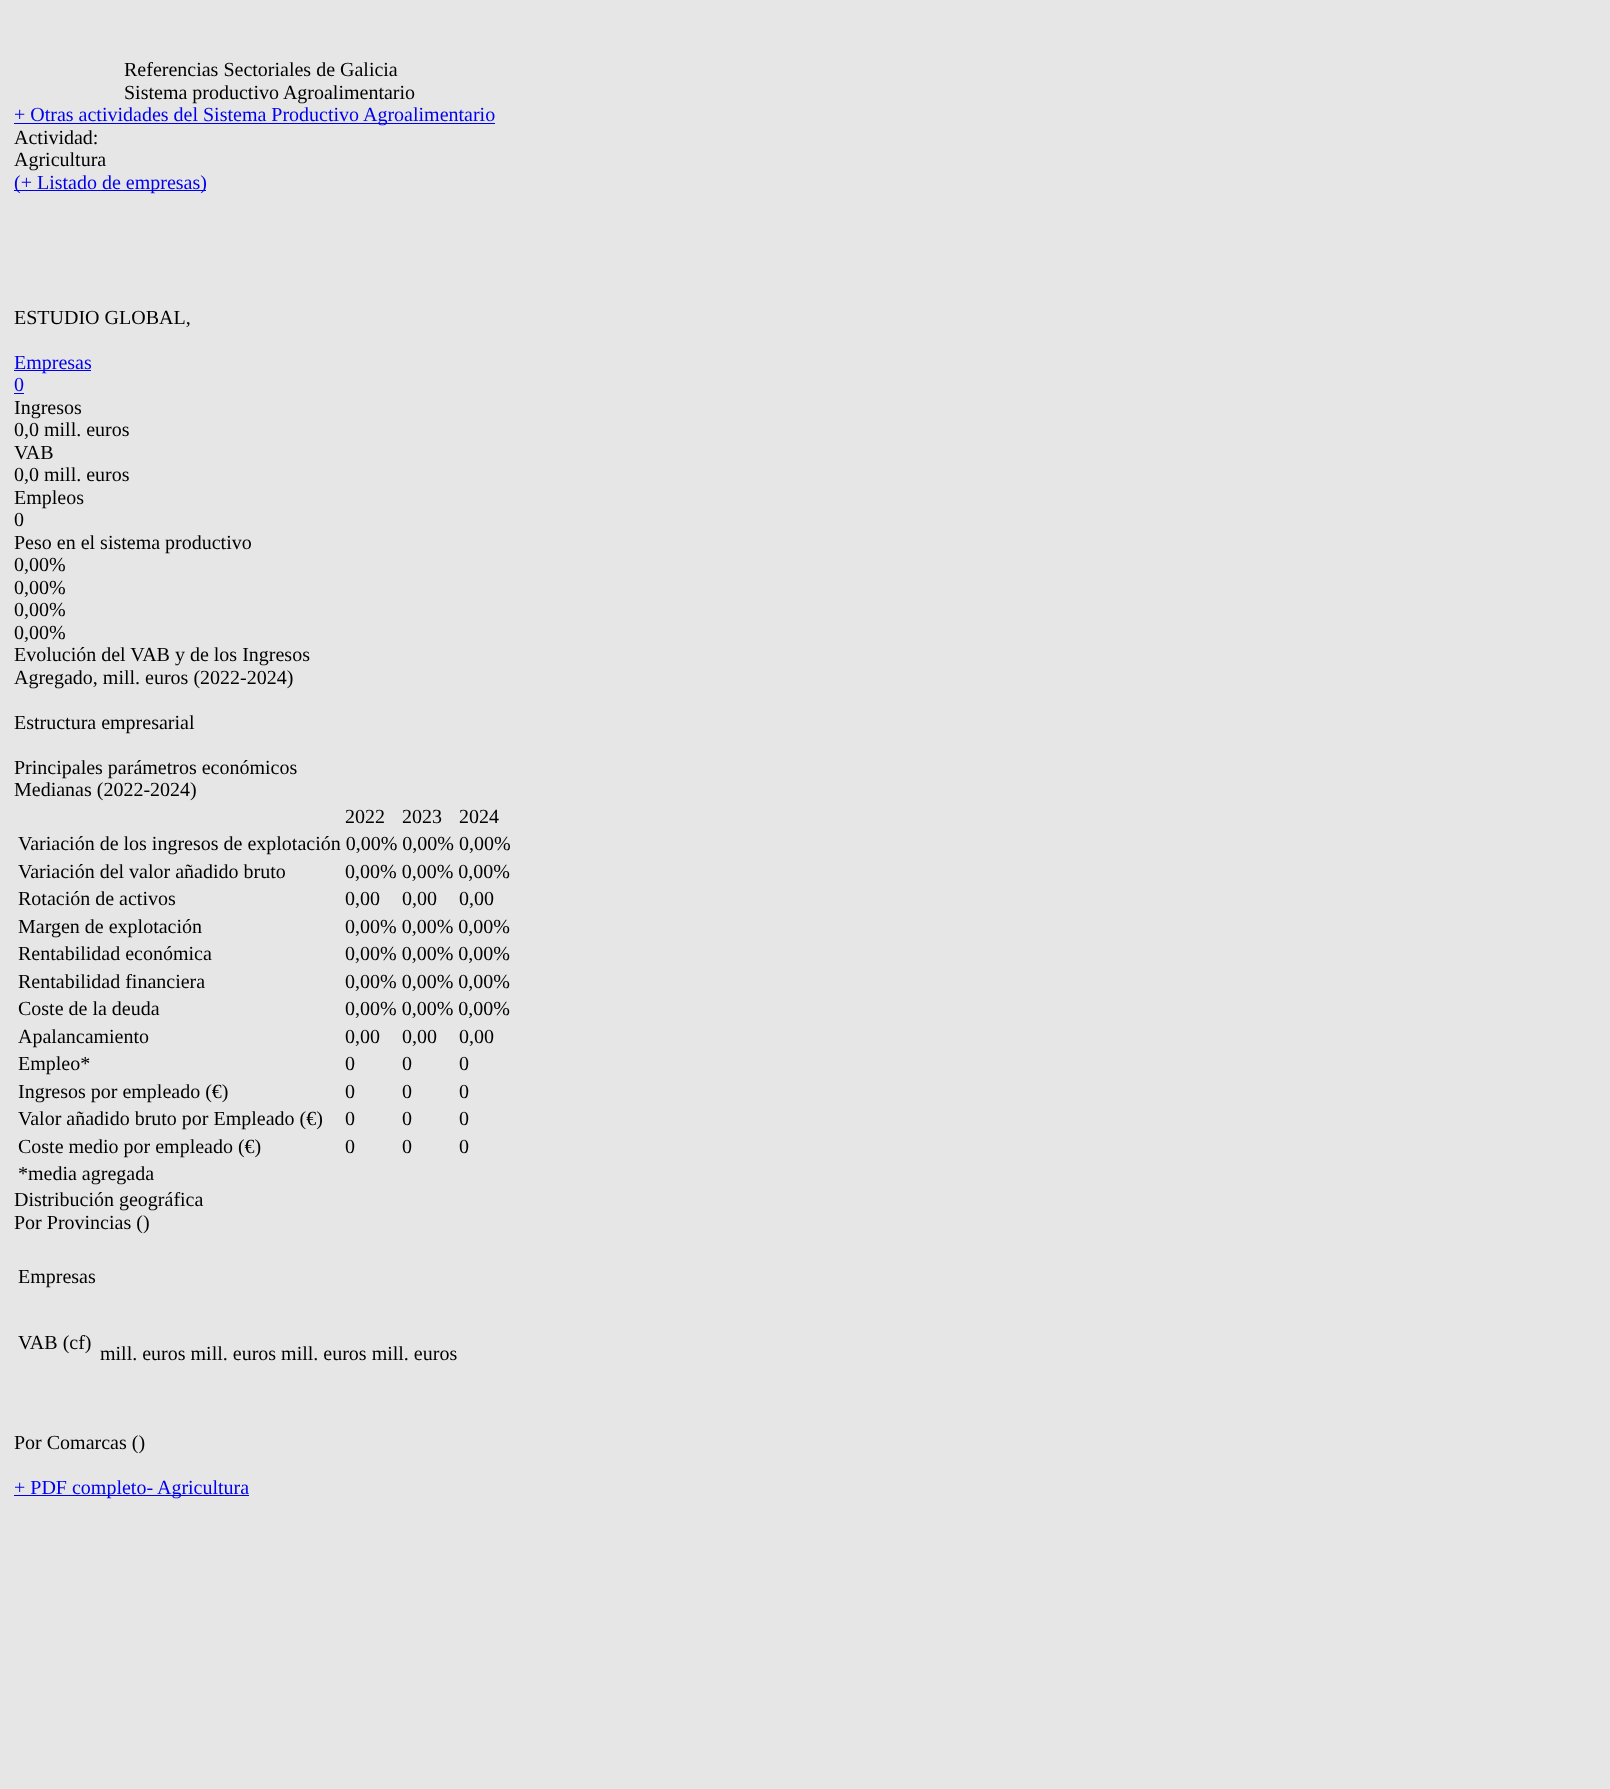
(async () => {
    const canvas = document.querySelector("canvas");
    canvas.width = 1610;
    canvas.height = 1789;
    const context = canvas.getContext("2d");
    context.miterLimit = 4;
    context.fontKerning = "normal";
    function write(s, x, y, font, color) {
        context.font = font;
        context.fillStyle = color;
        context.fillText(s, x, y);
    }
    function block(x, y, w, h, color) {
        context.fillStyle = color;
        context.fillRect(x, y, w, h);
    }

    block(0, 0, 1610, 1789, "rgb(230, 230, 230)");
    write("Referencias Sectoriales de Galicia", 124, 76, "20px Liberation Serif", "rgb(0, 0, 0)");
    write("Sistema productivo Agroalimentario", 124, 99, "20px Liberation Serif", "rgb(0, 0, 0)");
    block(14, 123, 481, 1, "rgb(0, 0, 238)");
    write("+ Otras actividades del Sistema Productivo Agroalimentario", 14, 121, "20px Liberation Serif", "rgb(0, 0, 238)");
    write("Actividad:", 14, 144, "20px Liberation Serif", "rgb(0, 0, 0)");
    write("Agricultura", 14, 166, "20px Liberation Serif", "rgb(0, 0, 0)");
    block(14, 190, 192, 1, "rgb(0, 0, 238)");
    write("(+ Listado de empresas)", 14, 189, "20px Liberation Serif", "rgb(0, 0, 238)");
    write("ESTUDIO GLOBAL,", 14, 324, "20px Liberation Serif", "rgb(0, 0, 0)");
    block(14, 370, 77, 1, "rgb(0, 0, 238)");
    write("Empresas", 14, 369, "20px Liberation Serif", "rgb(0, 0, 238)");
    write("0", 14, 391, "20px Liberation Serif", "rgb(0, 0, 238)");
    block(14, 393, 10, 1, "rgb(0, 0, 238)");
    write("Ingresos", 14, 414, "20px Liberation Serif", "rgb(0, 0, 0)");
    write("0,0 mill. euros", 14, 436, "20px Liberation Serif", "rgb(0, 0, 0)");
    write("VAB", 14, 459, "20px Liberation Serif", "rgb(0, 0, 0)");
    write("0,0 mill. euros", 14, 481, "20px Liberation Serif", "rgb(0, 0, 0)");
    write("Empleos", 14, 504, "20px Liberation Serif", "rgb(0, 0, 0)");
    write("0", 14, 526, "20px Liberation Serif", "rgb(0, 0, 0)");
    write("Peso en el sistema productivo", 14, 549, "20px Liberation Serif", "rgb(0, 0, 0)");
    write("0,00%", 14, 571, "20px Liberation Serif", "rgb(0, 0, 0)");
    write("0,00%", 14, 594, "20px Liberation Serif", "rgb(0, 0, 0)");
    write("0,00%", 14, 616, "20px Liberation Serif", "rgb(0, 0, 0)");
    write("0,00%", 14, 639, "20px Liberation Serif", "rgb(0, 0, 0)");
    write("Evolución del VAB y de los Ingresos", 14, 661, "20px Liberation Serif", "rgb(0, 0, 0)");
    write("Agregado, mill. euros (2022-2024)", 14, 684, "20px Liberation Serif", "rgb(0, 0, 0)");
    write("Estructura empresarial", 14, 729, "20px Liberation Serif", "rgb(0, 0, 0)");
    write("Principales parámetros económicos", 14, 774, "20px Liberation Serif", "rgb(0, 0, 0)");
    write("Medianas (2022-2024)", 14, 796, "20px Liberation Serif", "rgb(0, 0, 0)");
    write("2022", 345, 823, "20px Liberation Serif", "rgb(0, 0, 0)");
    write("2023", 402, 823, "20px Liberation Serif", "rgb(0, 0, 0)");
    write("2024", 459, 823, "20px Liberation Serif", "rgb(0, 0, 0)");
    write("Variación de los ingresos de explotación 0,00% 0,00% 0,00%", 18, 850, "20px Liberation Serif", "rgb(0, 0, 0)");
    write("Variación del valor añadido bruto", 18, 878, "20px Liberation Serif", "rgb(0, 0, 0)");
    write("0,00% 0,00% 0,00%", 345, 878, "20px Liberation Serif", "rgb(0, 0, 0)");
    write("Rotación de activos", 18, 905, "20px Liberation Serif", "rgb(0, 0, 0)");
    write("0,00", 345, 905, "20px Liberation Serif", "rgb(0, 0, 0)");
    write("0,00", 402, 905, "20px Liberation Serif", "rgb(0, 0, 0)");
    write("0,00", 459, 905, "20px Liberation Serif", "rgb(0, 0, 0)");
    write("Margen de explotación", 18, 933, "20px Liberation Serif", "rgb(0, 0, 0)");
    write("0,00% 0,00% 0,00%", 345, 933, "20px Liberation Serif", "rgb(0, 0, 0)");
    write("Rentabilidad económica", 18, 960, "20px Liberation Serif", "rgb(0, 0, 0)");
    write("0,00% 0,00% 0,00%", 345, 960, "20px Liberation Serif", "rgb(0, 0, 0)");
    write("Rentabilidad financiera", 18, 988, "20px Liberation Serif", "rgb(0, 0, 0)");
    write("0,00% 0,00% 0,00%", 345, 988, "20px Liberation Serif", "rgb(0, 0, 0)");
    write("Coste de la deuda", 18, 1015, "20px Liberation Serif", "rgb(0, 0, 0)");
    write("0,00% 0,00% 0,00%", 345, 1015, "20px Liberation Serif", "rgb(0, 0, 0)");
    write("Apalancamiento", 18, 1043, "20px Liberation Serif", "rgb(0, 0, 0)");
    write("0,00", 345, 1043, "20px Liberation Serif", "rgb(0, 0, 0)");
    write("0,00", 402, 1043, "20px Liberation Serif", "rgb(0, 0, 0)");
    write("0,00", 459, 1043, "20px Liberation Serif", "rgb(0, 0, 0)");
    write("Empleo*", 18, 1070, "20px Liberation Serif", "rgb(0, 0, 0)");
    write("0", 345, 1070, "20px Liberation Serif", "rgb(0, 0, 0)");
    write("0", 402, 1070, "20px Liberation Serif", "rgb(0, 0, 0)");
    write("0", 459, 1070, "20px Liberation Serif", "rgb(0, 0, 0)");
    write("Ingresos por empleado (€)", 18, 1098, "20px Liberation Serif", "rgb(0, 0, 0)");
    write("0", 345, 1098, "20px Liberation Serif", "rgb(0, 0, 0)");
    write("0", 402, 1098, "20px Liberation Serif", "rgb(0, 0, 0)");
    write("0", 459, 1098, "20px Liberation Serif", "rgb(0, 0, 0)");
    write("Valor añadido bruto por Empleado (€)", 18, 1125, "20px Liberation Serif", "rgb(0, 0, 0)");
    write("0", 345, 1125, "20px Liberation Serif", "rgb(0, 0, 0)");
    write("0", 402, 1125, "20px Liberation Serif", "rgb(0, 0, 0)");
    write("0", 459, 1125, "20px Liberation Serif", "rgb(0, 0, 0)");
    write("Coste medio por empleado (€)", 18, 1153, "20px Liberation Serif", "rgb(0, 0, 0)");
    write("0", 345, 1153, "20px Liberation Serif", "rgb(0, 0, 0)");
    write("0", 402, 1153, "20px Liberation Serif", "rgb(0, 0, 0)");
    write("0", 459, 1153, "20px Liberation Serif", "rgb(0, 0, 0)");
    write("*media agregada", 18, 1180, "20px Liberation Serif", "rgb(0, 0, 0)");
    write("Distribución geográfica", 14, 1206, "20px Liberation Serif", "rgb(0, 0, 0)");
    write("Por Provincias ()", 14, 1229, "20px Liberation Serif", "rgb(0, 0, 0)");
    write("Empresas", 18, 1283, "20px Liberation Serif", "rgb(0, 0, 0)");
    write("VAB (cf)", 18, 1349, "20px Liberation Serif", "rgb(0, 0, 0)");
    write("mill. euros mill. euros mill. euros mill. euros", 100, 1360, "20px Liberation Serif", "rgb(0, 0, 0)");
    write("Por Comarcas ()", 14, 1449, "20px Liberation Serif", "rgb(0, 0, 0)");
    block(14, 1495, 235, 1, "rgb(0, 0, 238)");
    write("+ PDF completo- Agricultura", 14, 1494, "20px Liberation Serif", "rgb(0, 0, 238)");
})();
